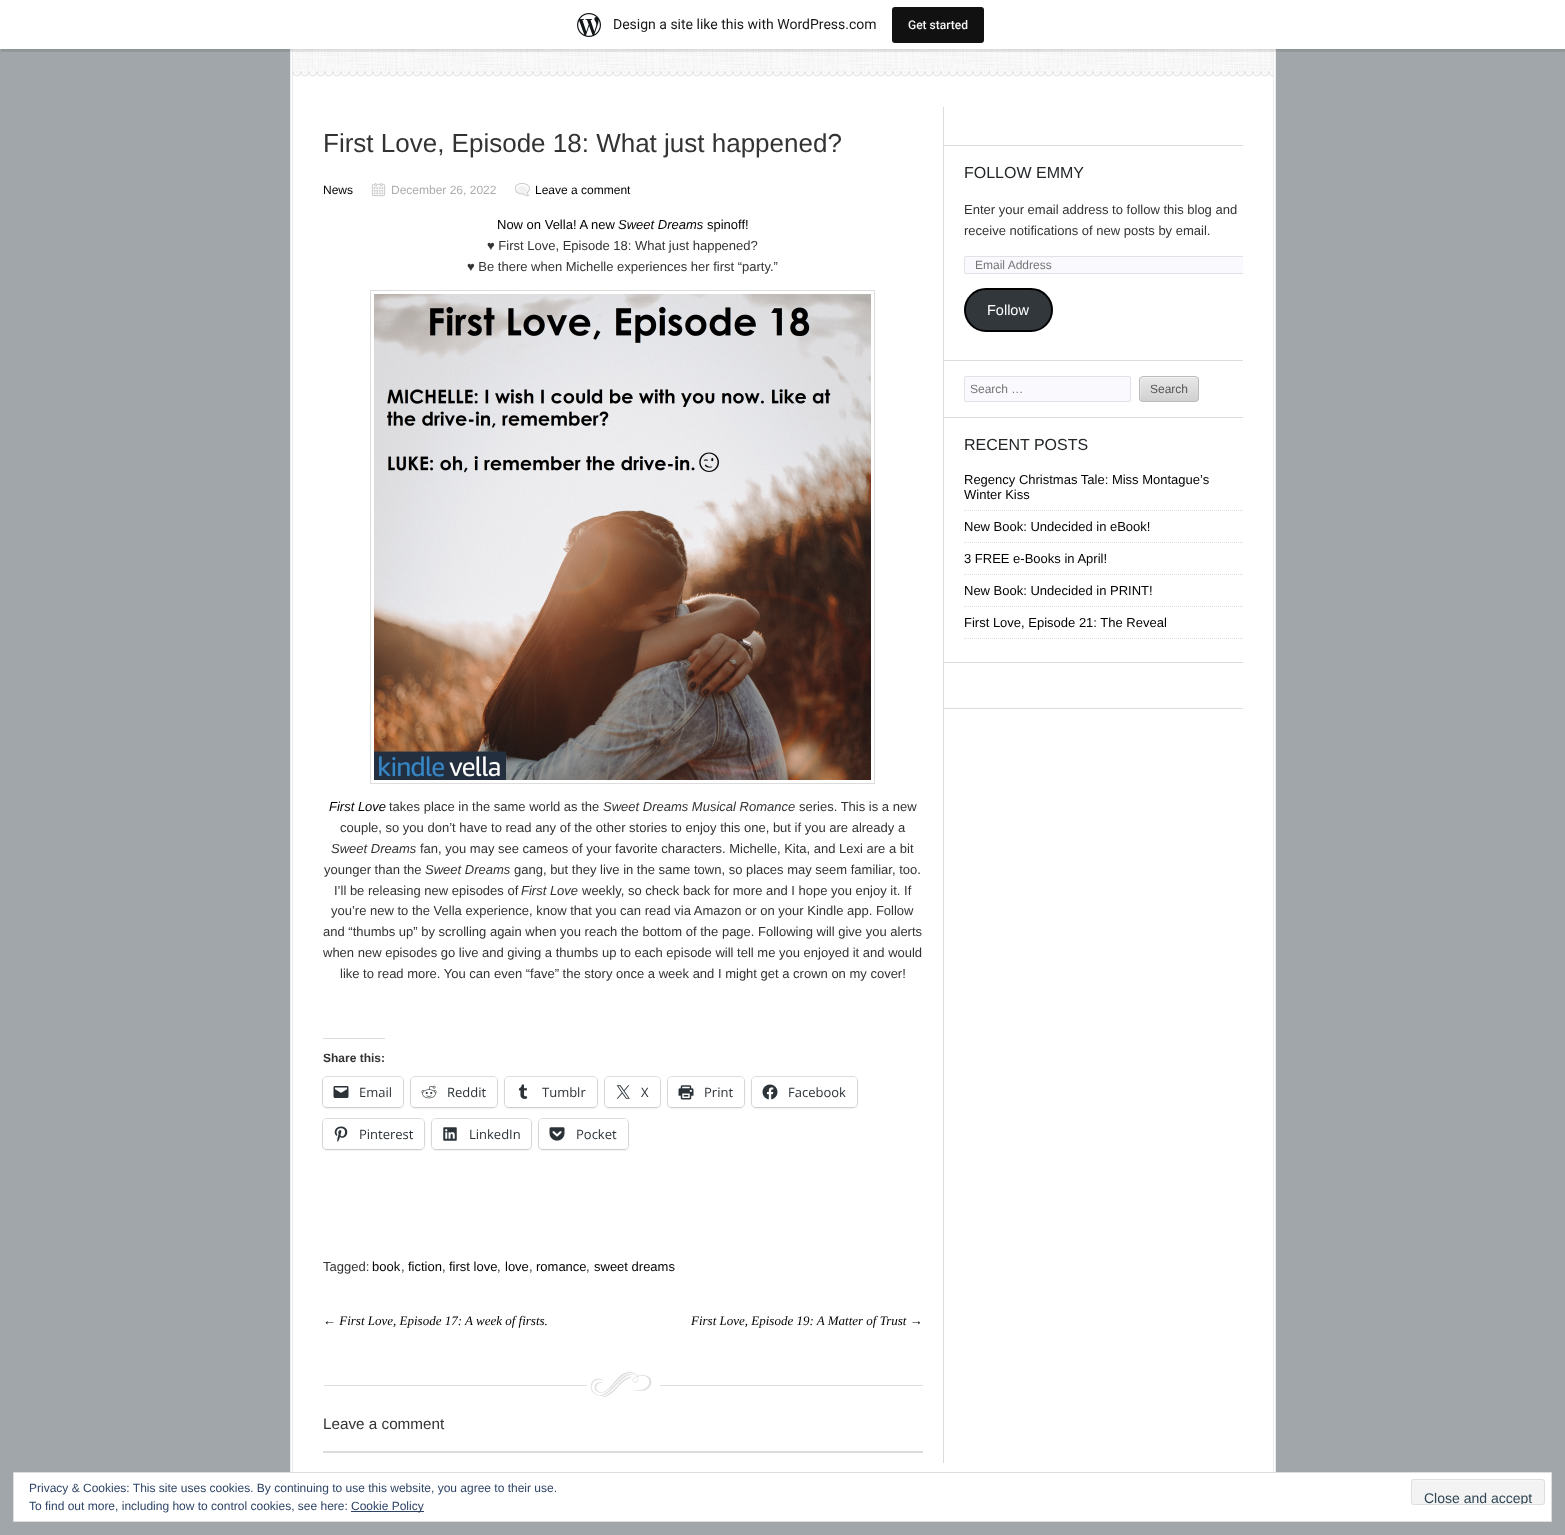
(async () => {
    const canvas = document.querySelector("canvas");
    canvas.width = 1565;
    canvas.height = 1535;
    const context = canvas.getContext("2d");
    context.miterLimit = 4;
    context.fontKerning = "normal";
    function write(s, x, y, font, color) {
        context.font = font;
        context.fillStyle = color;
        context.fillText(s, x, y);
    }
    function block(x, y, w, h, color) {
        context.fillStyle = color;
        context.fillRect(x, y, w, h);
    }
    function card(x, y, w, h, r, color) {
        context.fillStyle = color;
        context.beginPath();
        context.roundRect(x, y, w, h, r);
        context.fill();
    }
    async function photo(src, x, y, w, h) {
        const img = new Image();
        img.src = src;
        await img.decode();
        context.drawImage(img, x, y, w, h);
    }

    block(0, 0, 1565, 1535, "rgb(161, 166, 170)");
    block(291, 49, 984, 1423, "rgb(255, 255, 255)");
    context.strokeStyle = "rgb(235, 235, 235)";
    context.strokeRect(290.5, -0.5, 985, 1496);
    context.strokeRect(292.5, -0.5, 981, 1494);
    await photo("media/2.png", 293, 49, 980, 22);
    context.fillStyle = "rgba(0, 0, 0, 0.05)";
    context.filter = "blur(1px)";
    context.beginPath();
    context.rect(0, 1, 1565, 49);
    context.fill();
    context.filter = "none";
    context.fillStyle = "rgba(0, 0, 0, 0.08)";
    context.beginPath();
    context.moveTo(1, 49);
    context.lineTo(1, 52);
    context.lineTo(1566, 52);
    context.lineTo(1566, 3);
    context.lineTo(1565, 3);
    context.lineTo(1565, 49);
    context.closePath();
    context.fill();
    block(0, 0, 1565, 49, "rgb(255, 255, 255)");
    await photo("media/1.png", 577, 13, 24, 24);
    write("Design a site like this with WordPress.com", 613, 29, "14px Roboto", "rgb(23, 23, 23)");
    card(892, 7, 92, 36, 3, "rgb(17, 17, 17)");
    write("Get started", 908, 29, "500 12px Roboto", "rgb(246, 247, 247)");
    await photo("media/3.png", 293, 71, 980, 6);
    block(943, 107, 1, 1356, "rgb(220, 220, 220)");
    write("First Love, Episode 18: What just happened?", 323, 152, "26px Liberation Sans", "rgb(51, 51, 51)");
    write("News", 323, 194, "12px Liberation Sans", "rgb(0, 0, 0)");
    await photo("media/4.png", 371, 183, 15, 14);
    write("December 26, 2022", 391, 194, "12px Liberation Sans", "rgb(172, 172, 172)");
    await photo("media/5.png", 515, 183, 15, 14);
    write("Leave a comment", 535, 194, "12px Liberation Sans", "rgb(0, 0, 0)");
    write("Now on Vella! A new", 497, 229, "13px Liberation Sans", "rgb(0, 0, 0)");
    write("Sweet Dreams", 618, 229, "italic 13px Liberation Sans", "rgb(0, 0, 0)");
    write("spinoff!", 707, 229, "13px Liberation Sans", "rgb(0, 0, 0)");
    write("♥ First Love, Episode 18: What just happened?", 487, 250, "13px Liberation Sans", "rgb(51, 51, 51)");
    write("♥ Be there when Michelle experiences her first “party.”", 467, 271, "13px Liberation Sans", "rgb(51, 51, 51)");
    context.strokeStyle = "rgb(220, 220, 220)";
    context.strokeRect(370.5, 290.5, 504, 493);
    await photo("media/6.png", 374, 294, 497, 486);
    write("First Love", 329, 811, "italic 13px Liberation Sans", "rgb(0, 0, 0)");
    write("takes place in the same world as the", 389, 811, "13px Liberation Sans", "rgb(51, 51, 51)");
    write("Sweet Dreams Musical Romance", 603, 811, "italic 13px Liberation Sans", "rgb(51, 51, 51)");
    write("series. This is a new", 799, 811, "13px Liberation Sans", "rgb(51, 51, 51)");
    write("couple, so you don’t have to read any of the other stories to enjoy this one, but if you are already a", 340, 832, "13px Liberation Sans", "rgb(51, 51, 51)");
    write("Sweet Dreams", 331, 853, "italic 13px Liberation Sans", "rgb(51, 51, 51)");
    write("fan, you may see cameos of your favorite characters. Michelle, Kita, and Lexi are a bit", 420, 853, "13px Liberation Sans", "rgb(51, 51, 51)");
    write("younger than the", 324, 874, "13px Liberation Sans", "rgb(51, 51, 51)");
    write("Sweet Dreams", 425, 874, "italic 13px Liberation Sans", "rgb(51, 51, 51)");
    write("gang, but they live in the same town, so places may seem familiar, too.", 514, 874, "13px Liberation Sans", "rgb(51, 51, 51)");
    write("I’ll be releasing new episodes of", 334, 895, "13px Liberation Sans", "rgb(51, 51, 51)");
    write("First Love", 521, 895, "italic 13px Liberation Sans", "rgb(51, 51, 51)");
    write("weekly, so check back for more and I hope you enjoy it. If", 582, 895, "13px Liberation Sans", "rgb(51, 51, 51)");
    write("you’re new to the Vella experience, know that you can read via Amazon or on your Kindle app. Follow", 331, 915, "13px Liberation Sans", "rgb(51, 51, 51)");
    write("and “thumbs up” by scrolling again when you reach the bottom of the page. Following will give you alerts", 323, 936, "13px Liberation Sans", "rgb(51, 51, 51)");
    write("when new episodes go live and giving a thumbs up to each episode will tell me you enjoyed it and would", 323, 957, "13px Liberation Sans", "rgb(51, 51, 51)");
    write("like to read more. You can even “fave” the story once a week and I might get a crown on my cover!", 340, 978, "13px Liberation Sans", "rgb(51, 51, 51)");
    block(323, 1038, 62, 1, "rgb(220, 220, 222)");
    write("Share this:", 323, 1062, "bold 12px Liberation Sans", "rgb(51, 51, 51)");
    context.beginPath();
    context.roundRect(322.5, 1076.5, 81, 31, 4.5);
    context.strokeStyle = "rgb(224, 224, 224)";
    context.stroke();
    context.fillStyle = "rgba(0, 0, 0, 0.12)";
    context.filter = "blur(1px)";
    context.beginPath();
    context.roundRect(323, 1078, 80, 30, 4);
    context.fill();
    context.filter = "none";
    card(323, 1077, 80, 30, 4, "rgb(255, 255, 255)");
    await photo("media/7.png", 333, 1086, 16, 12);
    write("Email", 359, 1097, "13px Open Sans", "rgb(44, 51, 56)");
    context.beginPath();
    context.roundRect(410.5, 1076.5, 87, 31, 4.5);
    context.stroke();
    context.fillStyle = "rgba(0, 0, 0, 0.12)";
    context.filter = "blur(1px)";
    context.beginPath();
    context.roundRect(411, 1078, 86, 30, 4);
    context.fill();
    context.filter = "none";
    card(411, 1077, 86, 30, 4, "rgb(255, 255, 255)");
    await photo("media/8.png", 421, 1085, 16, 14);
    write("Reddit", 447, 1097, "13px Open Sans", "rgb(44, 51, 56)");
    context.beginPath();
    context.roundRect(504.5, 1076.5, 93, 31, 4.5);
    context.stroke();
    context.fillStyle = "rgba(0, 0, 0, 0.12)";
    context.filter = "blur(1px)";
    context.beginPath();
    context.roundRect(505, 1078, 92, 30, 4);
    context.fill();
    context.filter = "none";
    card(505, 1077, 92, 30, 4, "rgb(255, 255, 255)");
    await photo("media/9.png", 518, 1084, 10, 15);
    write("Tumblr", 542, 1097, "13px Open Sans", "rgb(44, 51, 56)");
    context.beginPath();
    context.roundRect(604.5, 1076.5, 56, 31, 4.5);
    context.stroke();
    context.fillStyle = "rgba(0, 0, 0, 0.12)";
    context.filter = "blur(1px)";
    context.beginPath();
    context.roundRect(605, 1078, 55, 30, 4);
    context.fill();
    context.filter = "none";
    card(605, 1077, 55, 30, 4, "rgb(255, 255, 255)");
    await photo("media/10.png", 616, 1085, 14, 14);
    write("X", 641, 1097, "13px Open Sans", "rgb(44, 51, 56)");
    context.beginPath();
    context.roundRect(667.5, 1076.5, 77, 31, 4.5);
    context.stroke();
    context.fillStyle = "rgba(0, 0, 0, 0.12)";
    context.filter = "blur(1px)";
    context.beginPath();
    context.roundRect(668, 1078, 76, 30, 4);
    context.fill();
    context.filter = "none";
    card(668, 1077, 76, 30, 4, "rgb(255, 255, 255)");
    await photo("media/11.png", 678, 1085, 16, 15);
    write("Print", 704, 1097, "13px Open Sans", "rgb(44, 51, 56)");
    context.beginPath();
    context.roundRect(751.5, 1076.5, 106, 31, 4.5);
    context.stroke();
    context.fillStyle = "rgba(0, 0, 0, 0.12)";
    context.filter = "blur(1px)";
    context.beginPath();
    context.roundRect(752, 1078, 105, 30, 4);
    context.fill();
    context.filter = "none";
    card(752, 1077, 105, 30, 4, "rgb(255, 255, 255)");
    await photo("media/12.png", 762, 1084, 16, 16);
    write("Facebook", 788, 1097, "13px Open Sans", "rgb(44, 51, 56)");
    context.beginPath();
    context.roundRect(322.5, 1118.5, 102, 31, 4.5);
    context.stroke();
    context.fillStyle = "rgba(0, 0, 0, 0.12)";
    context.filter = "blur(1px)";
    context.beginPath();
    context.roundRect(323, 1120, 101, 30, 4);
    context.fill();
    context.filter = "none";
    card(323, 1119, 101, 30, 4, "rgb(255, 255, 255)");
    await photo("media/13.png", 334, 1126, 14, 16);
    write("Pinterest", 359, 1139, "13px Open Sans", "rgb(44, 51, 56)");
    context.beginPath();
    context.roundRect(431.5, 1118.5, 100, 31, 4.5);
    context.stroke();
    context.fillStyle = "rgba(0, 0, 0, 0.12)";
    context.filter = "blur(1px)";
    context.beginPath();
    context.roundRect(432, 1120, 99, 30, 4);
    context.fill();
    context.filter = "none";
    card(432, 1119, 99, 30, 4, "rgb(255, 255, 255)");
    await photo("media/14.png", 443, 1127, 14, 14);
    write("LinkedIn", 469, 1139, "13px Open Sans", "rgb(44, 51, 56)");
    context.beginPath();
    context.roundRect(538.5, 1118.5, 90, 31, 4.5);
    context.stroke();
    context.fillStyle = "rgba(0, 0, 0, 0.12)";
    context.filter = "blur(1px)";
    context.beginPath();
    context.roundRect(539, 1120, 89, 30, 4);
    context.fill();
    context.filter = "none";
    card(539, 1119, 89, 30, 4, "rgb(255, 255, 255)");
    await photo("media/15.png", 549, 1127, 16, 14);
    write("Pocket", 576, 1139, "13px Open Sans", "rgb(44, 51, 56)");
    write("Tagged:", 323, 1271, "13px Liberation Sans", "rgb(51, 51, 51)");
    write("book", 372, 1271, "13px Liberation Sans", "rgb(0, 0, 0)");
    write(",", 401, 1271, "13px Liberation Sans", "rgb(51, 51, 51)");
    write("fiction", 408, 1271, "13px Liberation Sans", "rgb(0, 0, 0)");
    write(",", 442, 1271, "13px Liberation Sans", "rgb(51, 51, 51)");
    write("first love", 449, 1271, "13px Liberation Sans", "rgb(0, 0, 0)");
    write(",", 497, 1271, "13px Liberation Sans", "rgb(51, 51, 51)");
    write("love", 505, 1271, "13px Liberation Sans", "rgb(0, 0, 0)");
    write(",", 529, 1271, "13px Liberation Sans", "rgb(51, 51, 51)");
    write("romance", 536, 1271, "13px Liberation Sans", "rgb(0, 0, 0)");
    write(",", 586, 1271, "13px Liberation Sans", "rgb(51, 51, 51)");
    write("sweet dreams", 594, 1271, "13px Liberation Sans", "rgb(0, 0, 0)");
    write("← First Love, Episode 17: A week of firsts.", 323, 1325, "italic 13px Liberation Serif", "rgb(0, 0, 0)");
    write("First Love, Episode 19: A Matter of Trust →", 691, 1325, "italic 13px Liberation Serif", "rgb(0, 0, 0)");
    await photo("media/16.png", 324, 1372, 599, 25);
    write("Leave a comment", 323, 1429, "15.25px Liberation Sans", "rgb(51, 51, 51)");
    block(323, 1451, 600, 2, "rgb(220, 220, 222)");
    block(944, 145, 299, 1, "rgb(220, 220, 220)");
    block(944, 360, 299, 1, "rgb(220, 220, 220)");
    write("FOLLOW EMMY", 964, 178, "16px Liberation Sans", "rgb(35, 39, 41)");
    write("Enter your email address to follow this blog and", 964, 214, "13px Liberation Sans", "rgb(51, 51, 51)");
    write("receive notifications of new posts by email.", 964, 235, "13px Liberation Sans", "rgb(51, 51, 51)");
    context.fillStyle = "rgb(250, 250, 254)";
    context.beginPath();
    context.roundRect(964, 256, 279, 18, [2, 0, 0, 2]);
    context.fill();
    context.save();
    context.beginPath();
    context.rect(944, 161, 299, 199);
    context.clip();
    context.beginPath();
    context.roundRect(964.5, 256.5, 286, 17, 1.5);
    context.strokeStyle = "rgb(226, 226, 230)";
    context.stroke();
    context.restore();
    write("Email Address", 975, 269, "12px Liberation Sans", "rgb(117, 117, 117)");
    context.fillStyle = "rgb(50, 55, 60)";
    context.beginPath();
    context.roundRect(965, 289, 87, 42, 21);
    context.fill();
    context.strokeStyle = "rgb(0, 0, 0)";
    context.lineWidth = 2;
    context.stroke();
    write("Follow", 987, 315, "14.5px Liberation Sans", "rgb(255, 255, 255)");
    block(944, 417, 299, 1, "rgb(220, 220, 220)");
    context.fillStyle = "rgb(250, 250, 254)";
    context.beginPath();
    context.roundRect(964.5, 376.5, 166, 25, 1.5);
    context.fill();
    context.strokeStyle = "rgb(226, 226, 230)";
    context.lineWidth = 1;
    context.stroke();
    write("Search …", 970, 393, "12px Liberation Sans", "rgb(117, 117, 117)");
    await photo("media/17.png", 1139, 377, 60, 25);
    context.fillStyle = "rgba(255, 255, 255, 0.3)";
    context.beginPath();
    context.moveTo(1144, 378);
    context.lineTo(1197, 378);
    context.bezierCurveTo(1197, 377, 1196, 377, 1195, 377);
    context.lineTo(1143, 377);
    context.bezierCurveTo(1141, 377, 1140, 378, 1140, 380);
    context.lineTo(1140, 398);
    context.bezierCurveTo(1140, 399, 1140, 400, 1141, 400);
    context.lineTo(1141, 384);
    context.bezierCurveTo(1141, 381, 1140, 378, 1144, 378);
    context.closePath();
    context.fill();
    context.beginPath();
    context.roundRect(1139.5, 376.5, 59, 25, 3.5);
    context.strokeStyle = "rgb(187, 187, 187)";
    context.stroke();
    write("Search", 1150, 393, "12px Liberation Sans", "rgb(85, 85, 85)");
    block(944, 662, 299, 1, "rgb(220, 220, 220)");
    write("RECENT POSTS", 964, 450, "16px Liberation Sans", "rgb(35, 39, 41)");
    context.beginPath();
    context.moveTo(964, 510.5);
    context.lineTo(1243, 510.5);
    context.strokeStyle = "rgb(220, 220, 220)";
    context.setLineDash([1, 1]);
    context.stroke();
    write("Regency Christmas Tale: Miss Montague’s", 964, 484, "13px Liberation Sans", "rgb(0, 0, 0)");
    write("Winter Kiss", 964, 499, "13px Liberation Sans", "rgb(0, 0, 0)");
    context.beginPath();
    context.moveTo(964, 542.5);
    context.lineTo(1243, 542.5);
    context.stroke();
    write("New Book: Undecided in eBook!", 964, 531, "13px Liberation Sans", "rgb(0, 0, 0)");
    context.beginPath();
    context.moveTo(964, 574.5);
    context.lineTo(1243, 574.5);
    context.stroke();
    write("3 FREE e-Books in April!", 964, 563, "13px Liberation Sans", "rgb(0, 0, 0)");
    context.beginPath();
    context.moveTo(964, 606.5);
    context.lineTo(1243, 606.5);
    context.stroke();
    write("New Book: Undecided in PRINT!", 964, 595, "13px Liberation Sans", "rgb(0, 0, 0)");
    context.beginPath();
    context.moveTo(964, 638.5);
    context.lineTo(1243, 638.5);
    context.stroke();
    write("First Love, Episode 21: The Reveal", 964, 627, "13px Liberation Sans", "rgb(0, 0, 0)");
    block(944, 708, 299, 1, "rgb(220, 220, 220)");
    context.fillStyle = "rgb(255, 255, 255)";
    context.beginPath();
    context.rect(13.5, 1472.5, 1538, 49);
    context.fill();
    context.strokeStyle = "rgb(222, 222, 222)";
    context.setLineDash([]);
    context.stroke();
    write("Privacy & Cookies: This site uses cookies. By continuing to use this website, you agree to their use.", 29, 1492, "12px Liberation Sans", "rgb(46, 68, 103)");
    card(1411, 1479, 134, 26, 3, "rgb(243, 243, 243)");
    context.fillStyle = "rgb(247, 247, 247)";
    context.beginPath();
    context.moveTo(1415, 1481);
    context.lineTo(1544, 1481);
    context.lineTo(1542, 1480);
    context.lineTo(1413, 1480);
    context.lineTo(1412, 1482);
    context.bezierCurveTo(1412, 1485, 1411, 1503, 1413, 1504);
    context.lineTo(1413, 1493);
    context.bezierCurveTo(1413, 1491, 1411, 1481, 1415, 1481);
    context.closePath();
    context.fill();
    context.beginPath();
    context.roundRect(1411.5, 1479.5, 133, 25, 2.5);
    context.stroke();
    context.save();
    context.beginPath();
    context.roundRect(1412, 1480, 132, 24, 2);
    context.clip();
    write("Close and accept", 1424, 1503, "14px Liberation Sans", "rgb(46, 68, 83)");
    context.restore();
    write("To find out more, including how to control cookies, see here:", 29, 1510, "12px Liberation Sans", "rgb(46, 68, 103)");
    block(351, 1511, 73, 1, "rgb(46, 68, 103)");
    write("Cookie Policy", 351, 1510, "12px Liberation Sans", "rgb(46, 68, 103)");
})();
